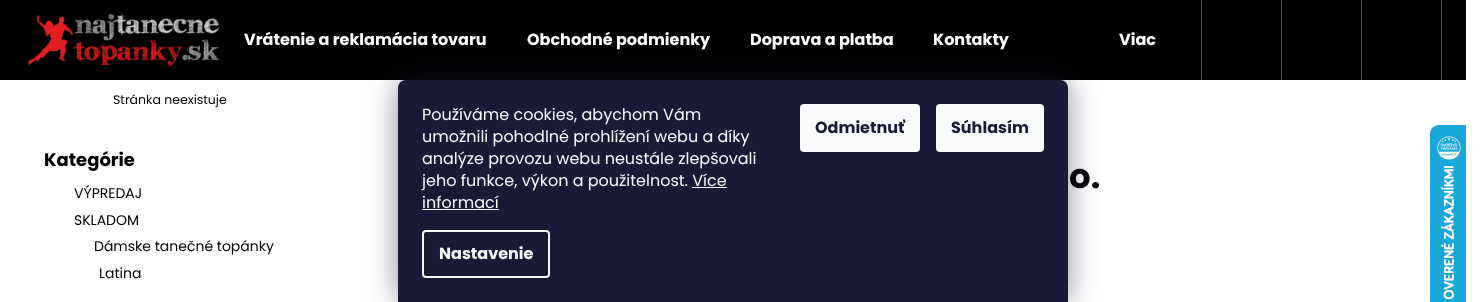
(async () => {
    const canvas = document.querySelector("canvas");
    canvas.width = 1481;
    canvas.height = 302;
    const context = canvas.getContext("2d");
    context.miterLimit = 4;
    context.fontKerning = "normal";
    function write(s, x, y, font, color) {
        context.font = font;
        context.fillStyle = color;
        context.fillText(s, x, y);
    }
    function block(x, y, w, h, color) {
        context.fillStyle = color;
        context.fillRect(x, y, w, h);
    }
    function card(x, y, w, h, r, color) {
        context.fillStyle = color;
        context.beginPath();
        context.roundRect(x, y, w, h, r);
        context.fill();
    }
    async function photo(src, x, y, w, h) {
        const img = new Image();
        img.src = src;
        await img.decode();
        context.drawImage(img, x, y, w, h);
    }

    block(0, 0, 1481, 302, "rgb(255, 255, 255)");
    block(0, 0, 1466, 80, "rgb(0, 0, 0)");
    await photo("media/1.png", 28, 13, 192, 55);
    write("Vrátenie a reklamácia tovaru", 244, 45, "bold 16px Poppins", "rgb(255, 255, 255)");
    write("Obchodné podmienky", 527, 45, "bold 16px Poppins", "rgb(255, 255, 255)");
    write("Doprava a platba", 750, 45, "bold 16px Poppins", "rgb(255, 255, 255)");
    write("Kontakty", 933, 45, "bold 16px Poppins", "rgb(255, 255, 255)");
    write("Viac", 1119, 45, "bold 16px Poppins", "rgb(255, 255, 255)");
    block(1441, 0, 1, 80, "rgb(77, 77, 77)");
    block(1201, 0, 1, 80, "rgb(77, 77, 77)");
    block(1281, 0, 1, 80, "rgb(77, 77, 77)");
    block(1361, 0, 1, 80, "rgb(77, 77, 77)");
    write("Stránka neexistuje", 113, 104, "12.5px Poppins", "rgb(0, 0, 0)");
    write("Kategórie", 44, 166, "bold 18px Poppins", "rgb(0, 0, 0)");
    write("VÝPREDAJ", 74, 198, "14px Poppins", "rgb(0, 0, 0)");
    write("SKLADOM", 74, 225, "14px Poppins", "rgb(0, 0, 0)");
    write("Dámske tanečné topánky", 94, 251, "14px Poppins", "rgb(0, 0, 0)");
    write("Latina", 99, 278, "14px Poppins", "rgb(0, 0, 0)");
    write("o.", 1069, 188, "bold 34px Poppins", "rgb(0, 0, 0)");
    context.fillStyle = "rgba(27, 25, 57, 0.5)";
    context.filter = "blur(15px)";
    context.beginPath();
    context.roundRect(398, 80, 670, 222, 8);
    context.fill();
    context.filter = "none";
    context.fillStyle = "rgb(26, 25, 55)";
    context.beginPath();
    context.roundRect(398, 80, 670, 222, [8, 8, 0, 0]);
    context.fill();
    write("Používáme cookies, abychom Vám", 422, 120, "16px Poppins", "rgb(248, 250, 251)");
    write("umožnili pohodlné prohlížení webu a díky", 422, 142, "16px Poppins", "rgb(248, 250, 251)");
    write("analýze provozu webu neustále zlepšovali", 422, 164, "16px Poppins", "rgb(248, 250, 251)");
    write("jeho funkce, výkon a použitelnost. Více", 422, 186, "16px Poppins", "rgb(248, 250, 251)");
    write("informací", 422, 208, "16px Poppins", "rgb(248, 250, 251)");
    block(692, 187, 35, 1, "rgb(248, 250, 251)");
    block(422, 209, 77, 1, "rgb(248, 250, 251)");
    context.beginPath();
    context.roundRect(423, 231, 126, 46, 3);
    context.strokeStyle = "rgb(248, 250, 251)";
    context.lineWidth = 2;
    context.stroke();
    write("Nastavenie", 439, 259, "bold 16px Poppins", "rgb(248, 250, 251)");
    card(800, 104, 120, 48, 4, "rgb(248, 250, 251)");
    write("Odmietnuť", 815, 133, "bold 16px Poppins", "rgb(26, 25, 55)");
    card(936, 104, 108, 48, 4, "rgb(248, 250, 251)");
    write("Súhlasím", 951, 133, "bold 16px Poppins", "rgb(26, 25, 55)");
    await photo("media/2.png", 1430, 125, 36, 177);
})();
